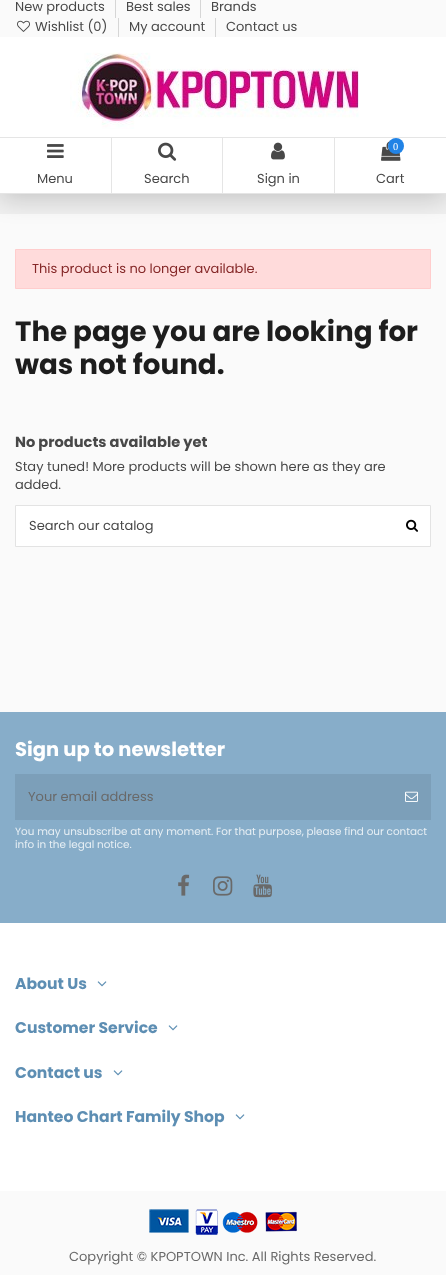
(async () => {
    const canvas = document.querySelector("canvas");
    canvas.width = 446;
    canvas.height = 1275;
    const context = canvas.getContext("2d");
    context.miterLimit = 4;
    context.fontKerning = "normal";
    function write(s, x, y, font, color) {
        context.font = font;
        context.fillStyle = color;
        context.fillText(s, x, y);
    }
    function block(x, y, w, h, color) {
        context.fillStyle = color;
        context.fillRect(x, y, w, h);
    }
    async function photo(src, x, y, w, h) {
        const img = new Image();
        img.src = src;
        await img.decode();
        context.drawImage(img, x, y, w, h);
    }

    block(0, 0, 446, 1275, "rgb(250, 250, 250)");
    block(0, 194, 446, 20, "rgb(240, 240, 240)");
    context.fillStyle = "rgba(0, 0, 0, 0.18)";
    context.filter = "blur(12.5px)";
    context.beginPath();
    context.rect(0, 3, 446, 196);
    context.fill();
    context.filter = "none";
    block(0, 37, 446, 157, "rgb(255, 255, 255)");
    block(0, 0, 446, 37, "rgb(250, 250, 250)");
    write("New products", 15, 11, "13px Poppins", "rgb(72, 72, 72)");
    block(115, 0, 1, 18, "rgb(214, 214, 214)");
    write("Best sales", 126, 11, "13px Poppins", "rgb(72, 72, 72)");
    block(200, 0, 1, 18, "rgb(214, 214, 214)");
    write("Brands", 211, 11, "13px Poppins", "rgb(72, 72, 72)");
    await photo("media/1.png", 17, 20, 13, 12);
    write("Wishlist (0)", 35, 31, "13px Poppins", "rgb(72, 72, 72)");
    block(118, 18, 1, 19, "rgb(214, 214, 214)");
    write("My account", 129, 31, "13px Poppins", "rgb(72, 72, 72)");
    block(215, 18, 1, 19, "rgb(214, 214, 214)");
    write("Contact us", 226, 31, "13px Poppins", "rgb(72, 72, 72)");
    await photo("media/2.png", 70, 52, 289, 77);
    context.fillStyle = "rgb(229, 229, 229)";
    context.beginPath();
    context.moveTo(0, 137);
    context.lineTo(112, 137);
    context.lineTo(111, 138);
    context.lineTo(0, 138);
    context.closePath();
    context.fill();
    context.fillStyle = "rgba(21, 21, 21, 0.11)";
    context.beginPath();
    context.moveTo(112, 137);
    context.lineTo(112, 194);
    context.lineTo(111, 193);
    context.lineTo(111, 138);
    context.closePath();
    context.fill();
    context.beginPath();
    context.moveTo(112, 194);
    context.lineTo(0, 194);
    context.lineTo(0, 193);
    context.lineTo(111, 193);
    context.closePath();
    context.fill();
    await photo("media/3.png", 47, 144, 17, 14);
    write("Menu", 37, 183, "13px Poppins", "rgb(72, 72, 72)");
    context.fillStyle = "rgb(229, 229, 229)";
    context.beginPath();
    context.moveTo(112, 137);
    context.lineTo(223, 137);
    context.lineTo(222, 138);
    context.lineTo(112, 138);
    context.closePath();
    context.fill();
    context.fillStyle = "rgba(21, 21, 21, 0.11)";
    context.beginPath();
    context.moveTo(223, 137);
    context.lineTo(223, 194);
    context.lineTo(222, 193);
    context.lineTo(222, 138);
    context.closePath();
    context.fill();
    context.beginPath();
    context.moveTo(223, 194);
    context.lineTo(112, 194);
    context.lineTo(112, 193);
    context.lineTo(222, 193);
    context.closePath();
    context.fill();
    await photo("media/4.png", 158, 142, 19, 19);
    write("Search", 144, 183, "13px Poppins", "rgb(72, 72, 72)");
    context.fillStyle = "rgb(229, 229, 229)";
    context.beginPath();
    context.moveTo(223, 137);
    context.lineTo(335, 137);
    context.lineTo(334, 138);
    context.lineTo(223, 138);
    context.closePath();
    context.fill();
    context.fillStyle = "rgba(21, 21, 21, 0.11)";
    context.beginPath();
    context.moveTo(335, 137);
    context.lineTo(335, 194);
    context.lineTo(334, 193);
    context.lineTo(334, 138);
    context.closePath();
    context.fill();
    context.beginPath();
    context.moveTo(335, 194);
    context.lineTo(223, 194);
    context.lineTo(223, 193);
    context.lineTo(334, 193);
    context.closePath();
    context.fill();
    await photo("media/5.png", 271, 142, 14, 18);
    write("Sign in", 257, 183, "13px Poppins", "rgb(72, 72, 72)");
    block(335, 137, 111, 1, "rgb(229, 229, 229)");
    block(335, 193, 111, 1, "rgb(229, 229, 229)");
    await photo("media/6.png", 381, 141, 20, 20);
    context.fillStyle = "rgb(33, 131, 230)";
    context.beginPath();
    context.arc(396, 146, 8, 0, Math.PI * 2);
    context.fill();
    write("0", 393, 150, "10.4px Liberation Serif", "rgb(255, 255, 255)");
    write("Cart", 376, 183, "13px Poppins", "rgb(72, 72, 72)");
    context.fillStyle = "rgb(255, 219, 219)";
    context.beginPath();
    context.rect(15.5, 249.5, 415, 39);
    context.fill();
    context.strokeStyle = "rgb(255, 205, 205)";
    context.stroke();
    write("This product is no longer available.", 32, 273, "13px Poppins", "rgb(133, 40, 40)");
    write("The page you are looking for", 15, 341, "bold 27.75px Poppins", "rgb(29, 29, 29)");
    write("was not found.", 15, 374, "bold 27.75px Poppins", "rgb(29, 29, 29)");
    write("No products available yet", 15, 447, "bold 14.6px Poppins", "rgb(72, 72, 72)");
    write("Stay tuned! More products will be shown here as they are", 15, 471, "13px Poppins", "rgb(72, 72, 72)");
    write("added.", 15, 489, "13px Poppins", "rgb(72, 72, 72)");
    context.fillStyle = "rgb(255, 255, 255)";
    context.beginPath();
    context.rect(15.5, 505.5, 415, 41);
    context.fill();
    context.strokeStyle = "rgb(227, 227, 227)";
    context.stroke();
    write("Search our catalog", 29, 530, "13px Poppins", "rgb(72, 72, 72)");
    await photo("media/7.png", 406, 519, 12, 13);
    block(0, 923, 446, 268, "rgb(255, 255, 255)");
    block(0, 712, 446, 211, "rgb(135, 173, 201)");
    write("Sign up to newsletter", 15, 756, "bold 19.5px Poppins", "rgb(255, 255, 255)");
    block(15, 774, 416, 46, "rgb(124, 159, 185)");
    write("Your email address", 28, 801, "13px Poppins", "rgb(105, 105, 105)");
    await photo("media/8.png", 405, 791, 13, 11);
    write("You may unsubscribe at any moment. For that purpose, please find our contact", 15, 835, "10.4px Poppins", "rgb(231, 239, 244)");
    write("info in the legal notice.", 15, 848, "10.4px Poppins", "rgb(231, 239, 244)");
    await photo("media/9.png", 178, 874, 12, 22);
    await photo("media/10.png", 213, 876, 20, 20);
    await photo("media/11.png", 253, 874, 19, 24);
    write("About Us", 15, 989, "bold 15.6px Poppins", "rgb(93, 142, 179)");
    await photo("media/12.png", 97, 981, 10, 6);
    write("Customer Service", 15, 1033, "bold 15.6px Poppins", "rgb(93, 142, 179)");
    await photo("media/12.png", 168, 1025, 10, 6);
    write("Contact us", 15, 1078, "bold 15.6px Poppins", "rgb(93, 142, 179)");
    await photo("media/12.png", 113, 1070, 10, 6);
    write("Hanteo Chart Family Shop", 15, 1122, "bold 15.6px Poppins", "rgb(93, 142, 179)");
    await photo("media/12.png", 235, 1114, 10, 6);
    await photo("media/13.png", 149, 1209, 148, 26);
    write("Copyright © KPOPTOWN Inc. All Rights Reserved.", 69, 1261, "13px Poppins", "rgb(105, 105, 105)");
})();
